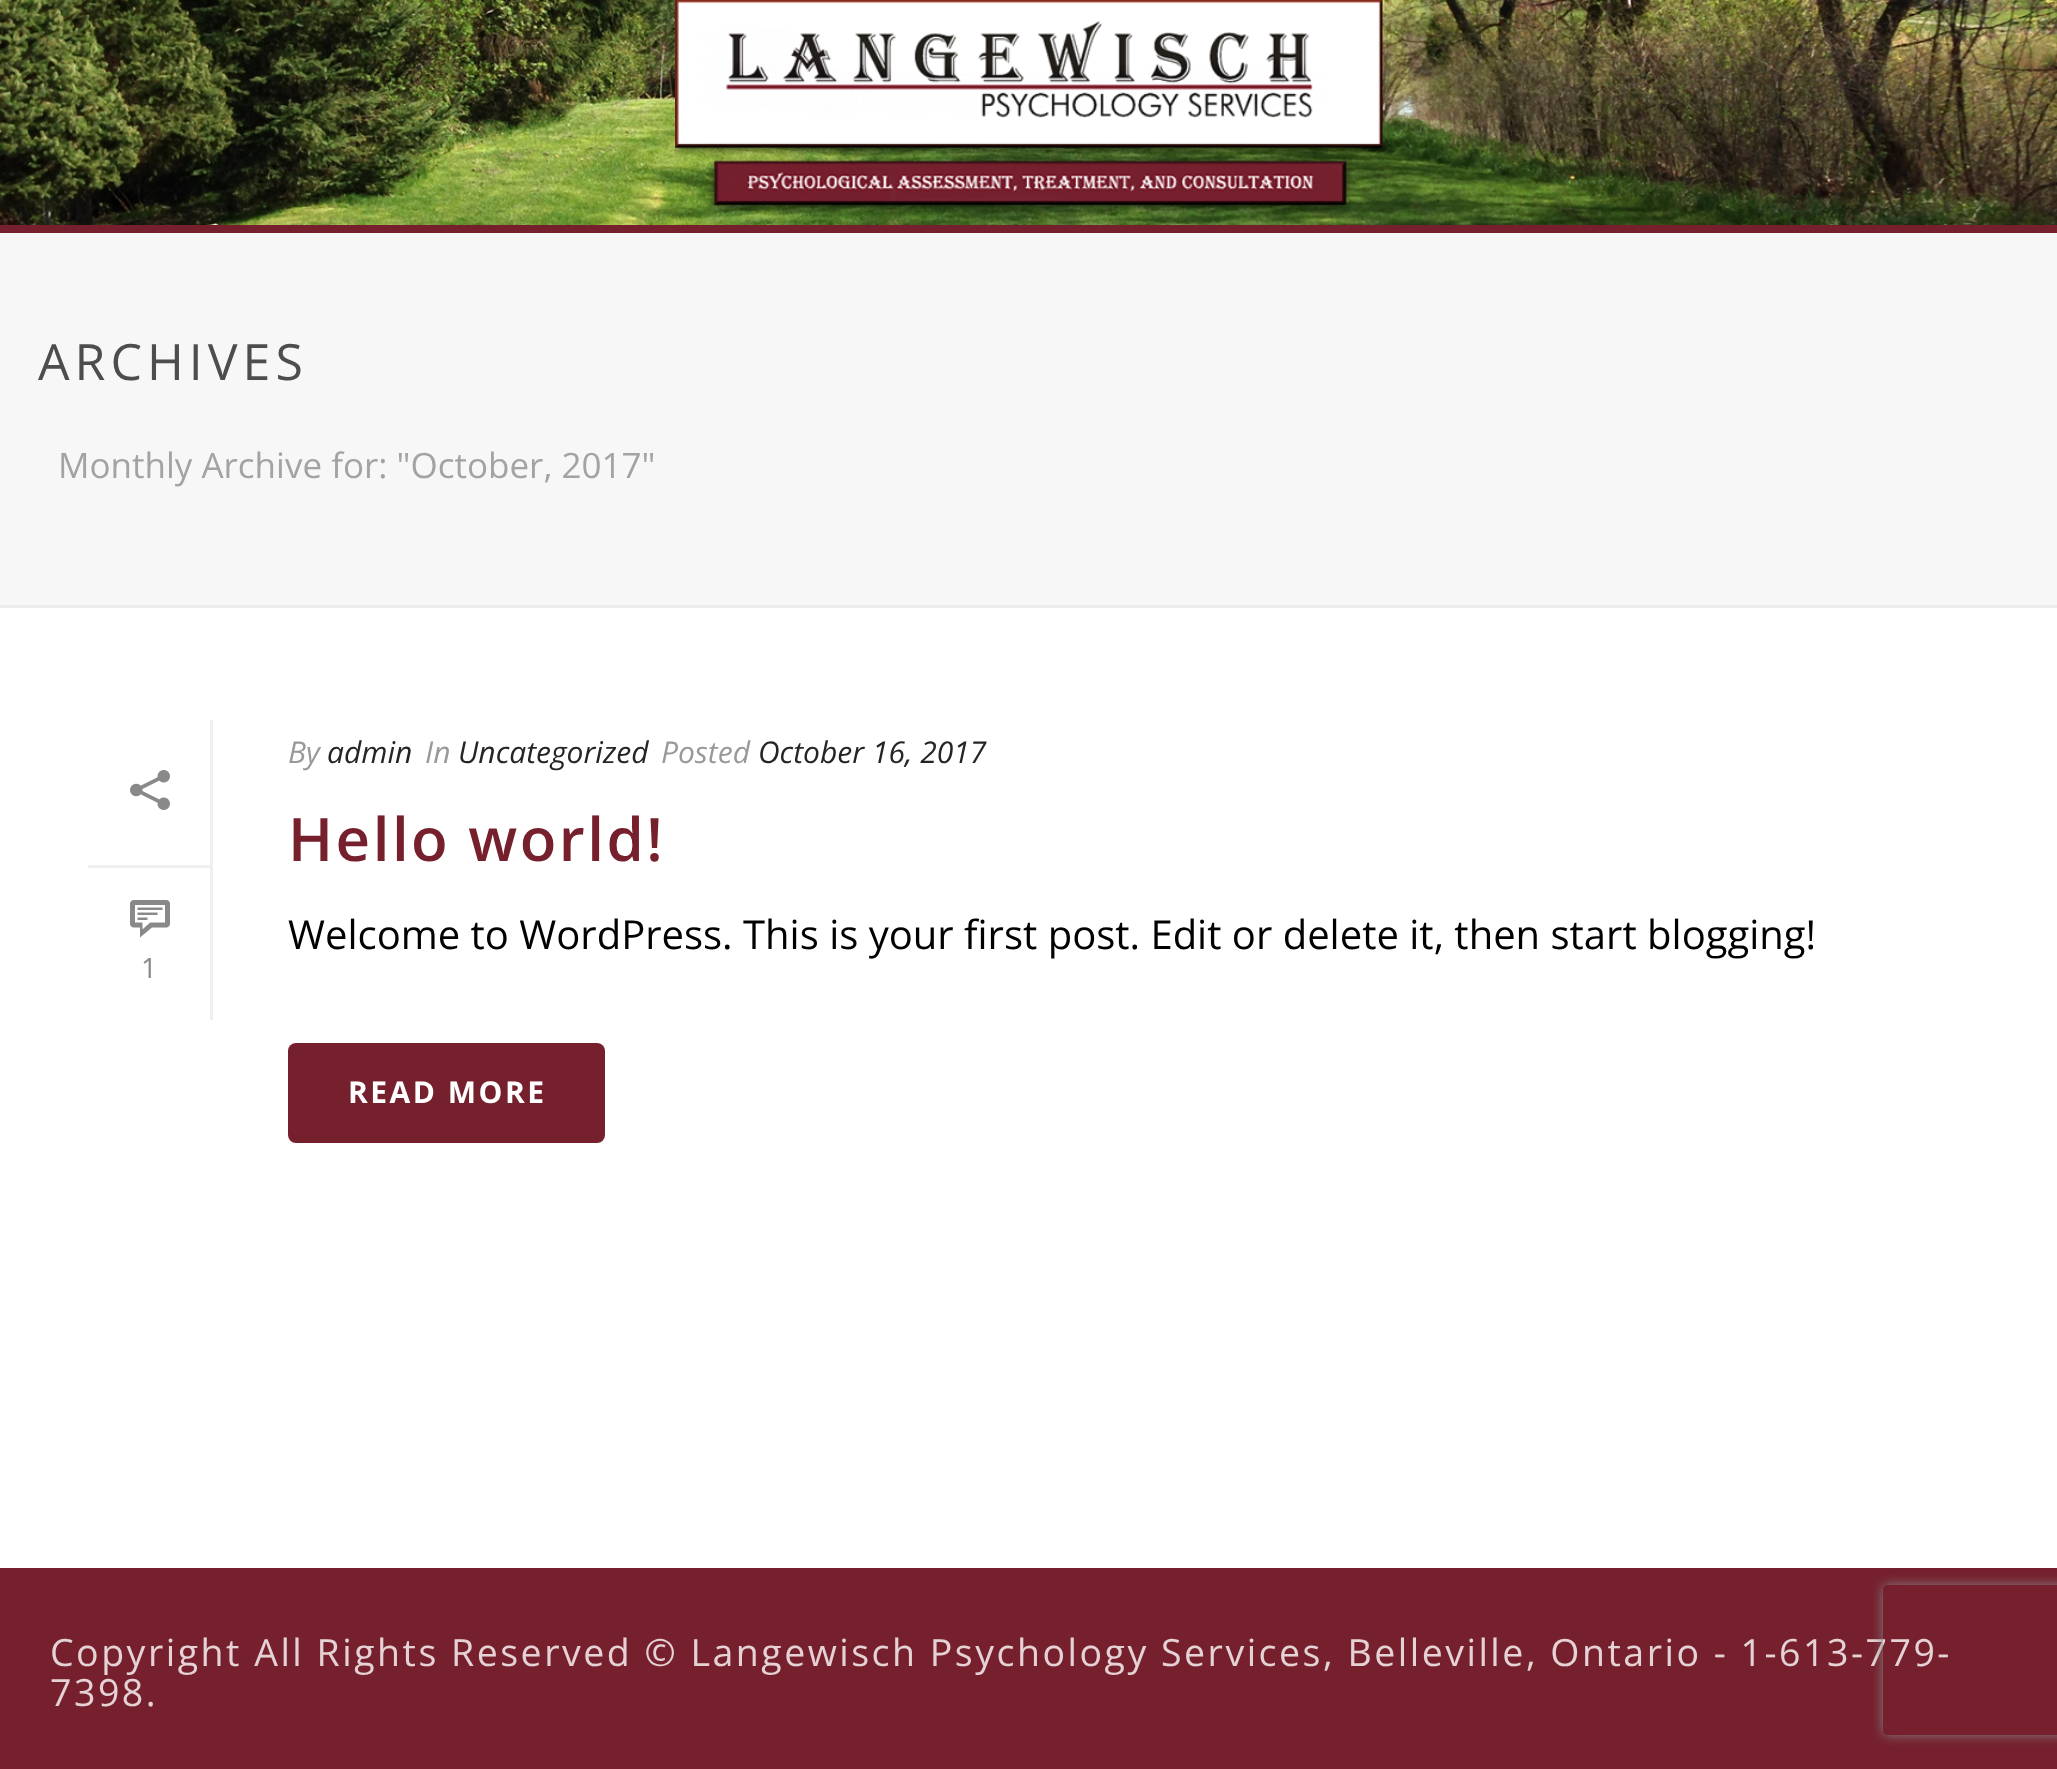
(async () => {
    const canvas = document.querySelector("canvas");
    canvas.width = 2057;
    canvas.height = 1769;
    const context = canvas.getContext("2d");
    context.miterLimit = 4;
    context.fontKerning = "normal";
    function write(s, x, y, font, color) {
        context.font = font;
        context.fillStyle = color;
        context.fillText(s, x, y);
    }
    function block(x, y, w, h, color) {
        context.fillStyle = color;
        context.fillRect(x, y, w, h);
    }
    function card(x, y, w, h, r, color) {
        context.fillStyle = color;
        context.beginPath();
        context.roundRect(x, y, w, h, r);
        context.fill();
    }
    async function photo(src, x, y, w, h) {
        const img = new Image();
        img.src = src;
        await img.decode();
        context.drawImage(img, x, y, w, h);
    }

    block(0, 0, 2057, 1769, "rgb(118, 32, 46)");
    block(0, 233, 2057, 372, "rgb(247, 247, 247)");
    block(0, 605, 2057, 3, "rgb(237, 237, 237)");
    await photo("media/1.png", 0, 0, 2057, 225);
    await photo("media/2.png", 675, 0, 708, 215);
    context.letterSpacing = "5px";
    write("ARCHIVES", 38, 380, "50px Open Sans", "rgb(77, 77, 77)");
    context.letterSpacing = "0px";
    write("Monthly Archive for: \"October, 2017\"", 58, 478, "35px Open Sans", "rgb(163, 163, 163)");
    block(0, 608, 2057, 960, "rgb(255, 255, 255)");
    block(210, 720, 3, 300, "rgb(239, 239, 239)");
    block(88, 865, 122, 3, "rgb(239, 239, 239)");
    await photo("media/3.png", 130, 770, 40, 40);
    await photo("media/4.png", 130, 900, 40, 38);
    write("1", 141, 978, "28px Open Sans", "rgb(137, 137, 137)");
    write("By", 288, 763, "italic 30px Open Sans", "rgb(153, 153, 153)");
    write("admin", 327, 763, "italic 30px Open Sans", "rgb(37, 37, 37)");
    write("In", 425, 763, "italic 30px Open Sans", "rgb(153, 153, 153)");
    write("Uncategorized", 458, 763, "italic 30px Open Sans", "rgb(37, 37, 37)");
    write("Posted", 661, 763, "italic 30px Open Sans", "rgb(153, 153, 153)");
    write("October 16, 2017", 758, 763, "italic 30px Open Sans", "rgb(37, 37, 37)");
    context.letterSpacing = "2.5px";
    write("Hello world!", 288, 861, "600 60px Open Sans", "rgb(118, 32, 46)");
    context.letterSpacing = "0px";
    write("Welcome to WordPress. This is your first post. Edit or delete it, then start blogging!", 288, 949, "40px Open Sans", "rgb(0, 0, 0)");
    card(288, 1043, 317, 100, 8, "rgb(118, 32, 46)");
    context.letterSpacing = "2.5px";
    write("READ MORE", 348, 1103, "bold 30px Open Sans", "rgb(255, 255, 255)");
    write("Copyright All Rights Reserved © Langewisch Psychology Services, Belleville, Ontario - 1-613-779-", 50, 1666, "37.5px Open Sans", "rgb(228, 210, 213)");
    write("7398.", 50, 1706, "37.5px Open Sans", "rgb(228, 210, 213)");
    context.save();
    context.beginPath();
    context.moveTo(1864, 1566);
    context.lineTo(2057, 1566);
    context.lineTo(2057, 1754);
    context.lineTo(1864, 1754);
    context.closePath();
    context.moveTo(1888, 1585);
    context.lineTo(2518, 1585);
    context.bezierCurveTo(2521, 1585, 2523, 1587, 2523, 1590);
    context.lineTo(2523, 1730);
    context.bezierCurveTo(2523, 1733, 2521, 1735, 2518, 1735);
    context.lineTo(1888, 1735);
    context.bezierCurveTo(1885, 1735, 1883, 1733, 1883, 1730);
    context.lineTo(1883, 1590);
    context.bezierCurveTo(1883, 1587, 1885, 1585, 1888, 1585);
    context.closePath();
    context.clip("evenodd");
    context.fillStyle = "rgb(128, 128, 128)";
    context.filter = "blur(6px)";
    context.beginPath();
    context.roundRect(1883, 1585, 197, 150, 5);
    context.fill();
    context.filter = "none";
    context.restore();
})();
